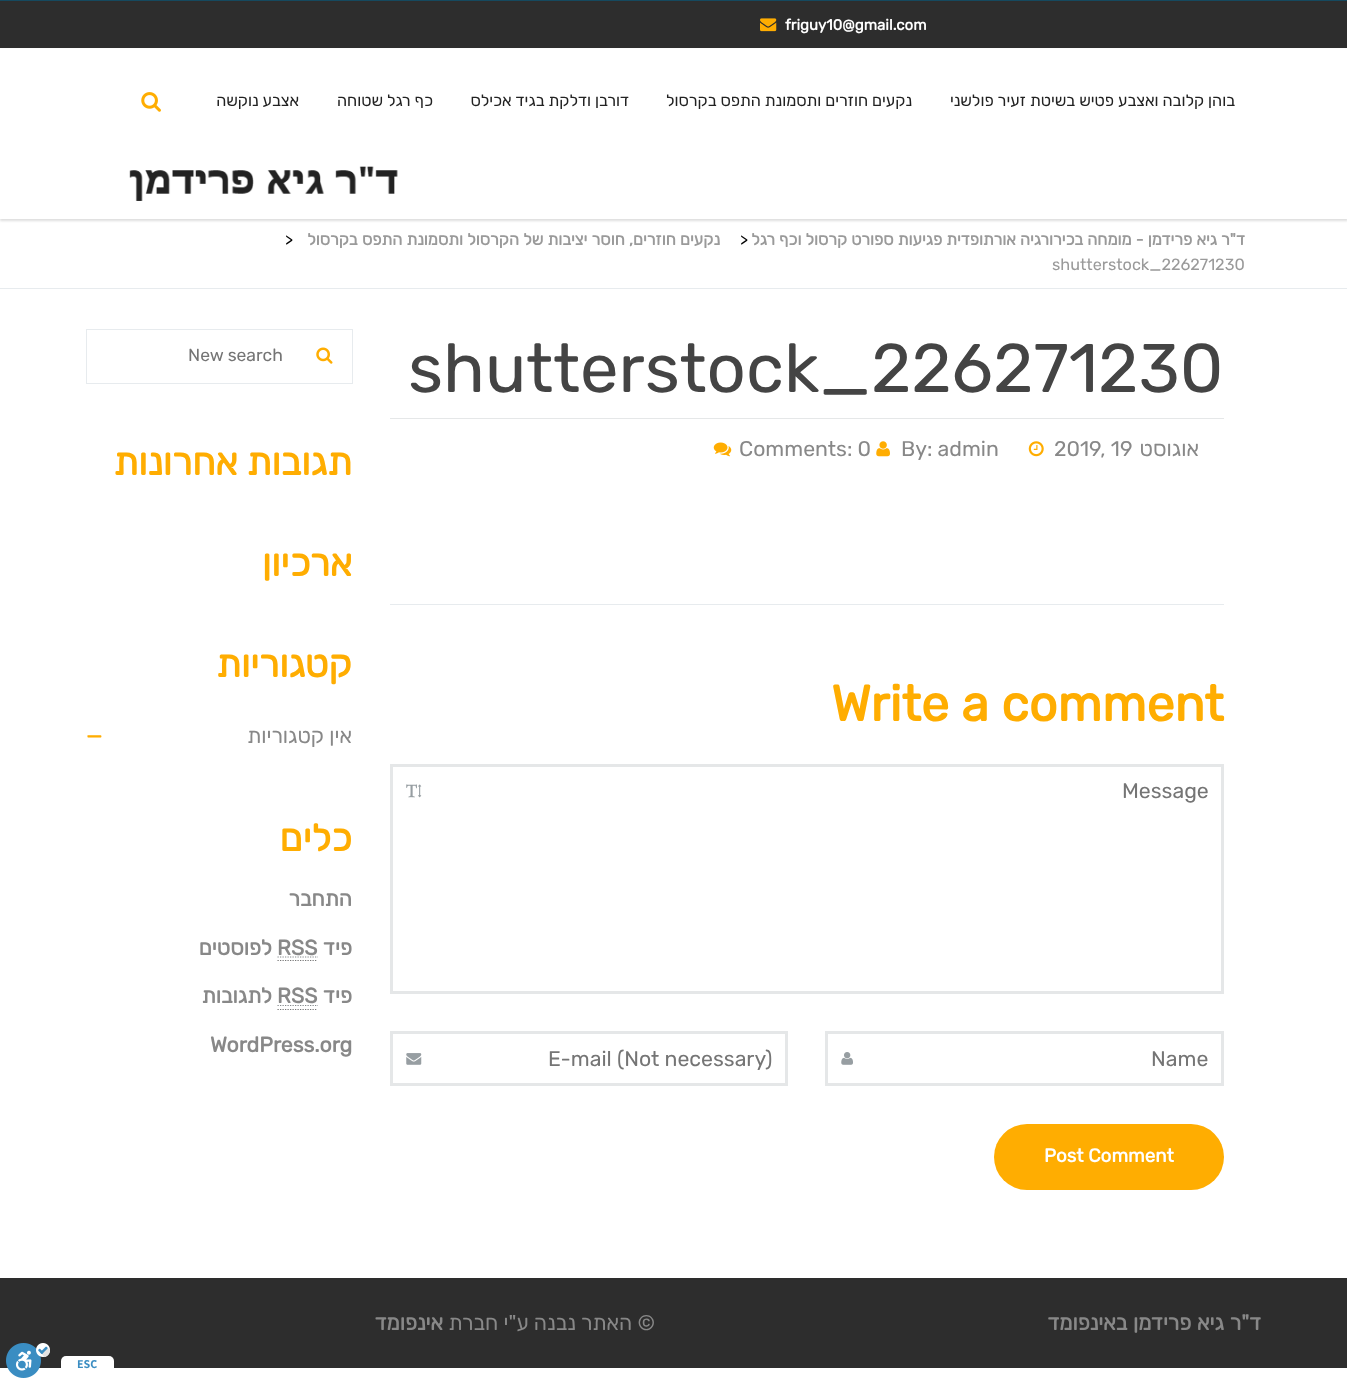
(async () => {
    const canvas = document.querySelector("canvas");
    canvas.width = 1347;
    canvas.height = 1379;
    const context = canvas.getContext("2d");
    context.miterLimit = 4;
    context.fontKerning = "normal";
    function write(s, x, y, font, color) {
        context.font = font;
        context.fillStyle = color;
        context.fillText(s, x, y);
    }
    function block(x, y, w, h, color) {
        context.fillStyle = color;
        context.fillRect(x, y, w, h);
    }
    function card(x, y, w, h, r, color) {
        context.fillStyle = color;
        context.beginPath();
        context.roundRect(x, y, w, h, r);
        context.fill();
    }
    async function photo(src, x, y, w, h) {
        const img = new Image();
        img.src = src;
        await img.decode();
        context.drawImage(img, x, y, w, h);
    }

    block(0, 0, 1347, 1379, "rgb(255, 255, 255)");
    context.fillStyle = "rgba(0, 0, 0, 0.13)";
    context.filter = "blur(1px)";
    context.beginPath();
    context.rect(0, 50, 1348, 171);
    context.fill();
    context.filter = "none";
    block(0, 1, 1347, 47, "rgb(45, 45, 45)");
    write("friguy10@gmail.com", 785, 30, "bold 15px Rubik", "rgb(255, 255, 255)");
    await photo("media/1.png", 760, 18, 17, 14);
    block(0, 49, 1347, 170, "rgb(255, 255, 255)");
    context.direction = "rtl";
    write("בוהן קלובה ואצבע פטיש בשיטת זעיר פולשני", 1235, 106, "300 16.25px Rubik", "rgb(34, 34, 34)");
    write("נקעים חוזרים ותסמונת התפס בקרסול", 912, 106, "300 16.25px Rubik", "rgb(34, 34, 34)");
    write("דורבן ודלקת בגיד אכילס", 629, 106, "300 16.25px Rubik", "rgb(34, 34, 34)");
    write("כף רגל שטוחה", 433, 106, "300 16.25px Rubik", "rgb(34, 34, 34)");
    write("אצבע נוקשה", 299, 106, "300 16.25px Rubik", "rgb(34, 34, 34)");
    await photo("media/2.png", 141, 92, 20, 20);
    await photo("media/3.png", 129, 166, 269, 35);
    block(0, 288, 1347, 1, "rgb(231, 235, 238)");
    context.wordSpacing = "0.1px";
    write("ד\"ר גיא פרידמן - מומחה בכירורגיה אורתופדית פגיעות ספורט קרסול וכף רגל", 1245, 245, "bold 16.25px Rubik", "rgb(154, 154, 154)");
    context.wordSpacing = "0px";
    context.direction = "ltr";
    write(">", 740, 245, "300 16.25px Rubik", "rgb(0, 0, 0)");
    context.wordSpacing = "0.25px";
    context.direction = "rtl";
    write("נקעים חוזרים, חוסר יציבות של הקרסול ותסמונת התפס בקרסול", 720, 245, "bold 16.25px Rubik", "rgb(154, 154, 154)");
    context.wordSpacing = "0px";
    context.direction = "ltr";
    write(">", 285, 245, "300 16.25px Rubik", "rgb(0, 0, 0)");
    write("shutterstock_226271230", 1052, 270, "300 16.25px Rubik", "rgb(154, 154, 154)");
    block(390, 418, 834, 1, "rgb(229, 231, 232)");
    write("shutterstock_226271230", 408, 392, "300 68.75px Rubik", "rgb(68, 68, 68)");
    context.direction = "rtl";
    write("אוגוסט", 1199, 456, "300 21.25px Rubik", "rgb(136, 136, 136)");
    context.direction = "ltr";
    write("2019, 19", 1054, 456, "300 21.25px Rubik", "rgb(136, 136, 136)");
    await photo("media/4.png", 1028, 441, 16, 16);
    write("By: admin", 901, 456, "300 21.25px Rubik", "rgb(136, 136, 136)");
    await photo("media/5.png", 876, 441, 14, 16);
    write("Comments: 0", 739, 456, "300 21.25px Rubik", "rgb(136, 136, 136)");
    await photo("media/6.png", 713, 442, 19, 15);
    block(390, 604, 834, 1, "rgb(231, 235, 238)");
    write("Write a comment", 831, 721, "bold 50px Rubik", "rgb(255, 173, 1)");
    context.strokeStyle = "rgb(229, 231, 232)";
    context.lineWidth = 3;
    context.strokeRect(391.5, 765.5, 831, 227);
    write("Message", 1122, 798, "300 21.25px Rubik", "rgb(117, 117, 117)");
    await photo("media/7.png", 406, 784, 16, 14);
    context.strokeRect(826.5, 1032.5, 396, 52);
    write("Name", 1151, 1066, "300 21.25px Rubik", "rgb(117, 117, 117)");
    await photo("media/8.png", 841, 1052, 12, 13);
    context.strokeRect(391.5, 1032.5, 395, 52);
    write("E-mail (Not necessary)", 548, 1066, "300 21.25px Rubik", "rgb(117, 117, 117)");
    await photo("media/9.png", 406, 1053, 16, 12);
    card(994, 1124, 230, 66, 33, "rgb(255, 173, 1)");
    write("Post Comment", 1044, 1162, "bold 18.75px Rubik", "rgb(255, 255, 255)");
    context.strokeStyle = "rgb(231, 235, 238)";
    context.lineWidth = 1;
    context.strokeRect(86.5, 329.5, 266, 54);
    await photo("media/10.png", 316, 347, 17, 17);
    write("New search", 188, 361, "300 17.5px Rubik", "rgb(117, 117, 117)");
    context.direction = "rtl";
    write("תגובות אחרונות", 352, 475, "bold 37.5px Rubik", "rgb(255, 173, 1)");
    write("ארכיון", 352, 576, "bold 37.5px Rubik", "rgb(255, 173, 1)");
    write("קטגוריות", 352, 677, "bold 37.5px Rubik", "rgb(255, 173, 1)");
    write("אין קטגוריות", 352, 743, "300 21.25px Rubik", "rgb(136, 136, 136)");
    context.direction = "ltr";
    write("—", 86, 743, "bold 21.25px Rubik", "rgb(255, 173, 1)");
    context.direction = "rtl";
    write("כלים", 352, 851, "bold 37.5px Rubik", "rgb(255, 173, 1)");
    write("התחבר", 352, 906, "bold 21.25px Rubik", "rgb(136, 136, 136)");
    write("פיד", 352, 955, "bold 21.25px Rubik", "rgb(136, 136, 136)");
    context.direction = "ltr";
    write("RSS", 277, 955, "bold 21.25px Rubik", "rgb(136, 136, 136)");
    context.beginPath();
    context.moveTo(277.5, 960.5);
    context.lineTo(317.5, 960.5);
    context.strokeStyle = "rgb(119, 119, 119)";
    context.lineWidth = 1.2;
    context.setLineDash([1.25, 1.25]);
    context.stroke();
    context.beginPath();
    context.moveTo(277.5, 957);
    context.lineTo(318, 957);
    context.strokeStyle = "rgb(132, 137, 139)";
    context.stroke();
    context.direction = "rtl";
    write("לפוסטים", 272, 955, "bold 21.25px Rubik", "rgb(136, 136, 136)");
    write("פיד", 352, 1003, "bold 21.25px Rubik", "rgb(136, 136, 136)");
    context.direction = "ltr";
    write("RSS", 277, 1003, "bold 21.25px Rubik", "rgb(136, 136, 136)");
    context.beginPath();
    context.moveTo(277.5, 1009.5);
    context.lineTo(317.5, 1009.5);
    context.strokeStyle = "rgb(119, 119, 119)";
    context.stroke();
    context.beginPath();
    context.moveTo(277.5, 1005.5);
    context.lineTo(318, 1005.5);
    context.strokeStyle = "rgb(132, 137, 139)";
    context.stroke();
    context.direction = "rtl";
    write("לתגובות", 272, 1003, "bold 21.25px Rubik", "rgb(136, 136, 136)");
    context.direction = "ltr";
    write("WordPress.org", 210, 1052, "bold 21.25px Rubik", "rgb(136, 136, 136)");
    block(0, 1278, 1347, 90, "rgb(45, 45, 45)");
    context.wordSpacing = "0.5px";
    context.direction = "rtl";
    write("ד\"ר גיא פרידמן באינפומד", 1261, 1330, "bold 21.25px Rubik", "rgb(136, 136, 136)");
    context.wordSpacing = "0px";
    write("© האתר נבנה ע\"י חברת", 655, 1330, "300 21.25px Rubik", "rgb(136, 136, 136)");
    write("אינפומד", 443, 1330, "bold 21.25px Rubik", "rgb(136, 136, 136)");
    block(0, 0, 1347, 1, "rgb(21, 73, 95)");
    card(61, 1356, 53, 18, 5, "rgb(255, 255, 255)");
    context.direction = "ltr";
    write("ESC", 77, 1368, "bold 12px Assistant", "rgb(58, 141, 194)");
    await photo("media/11.png", 6, 1343, 44, 35);
})();
